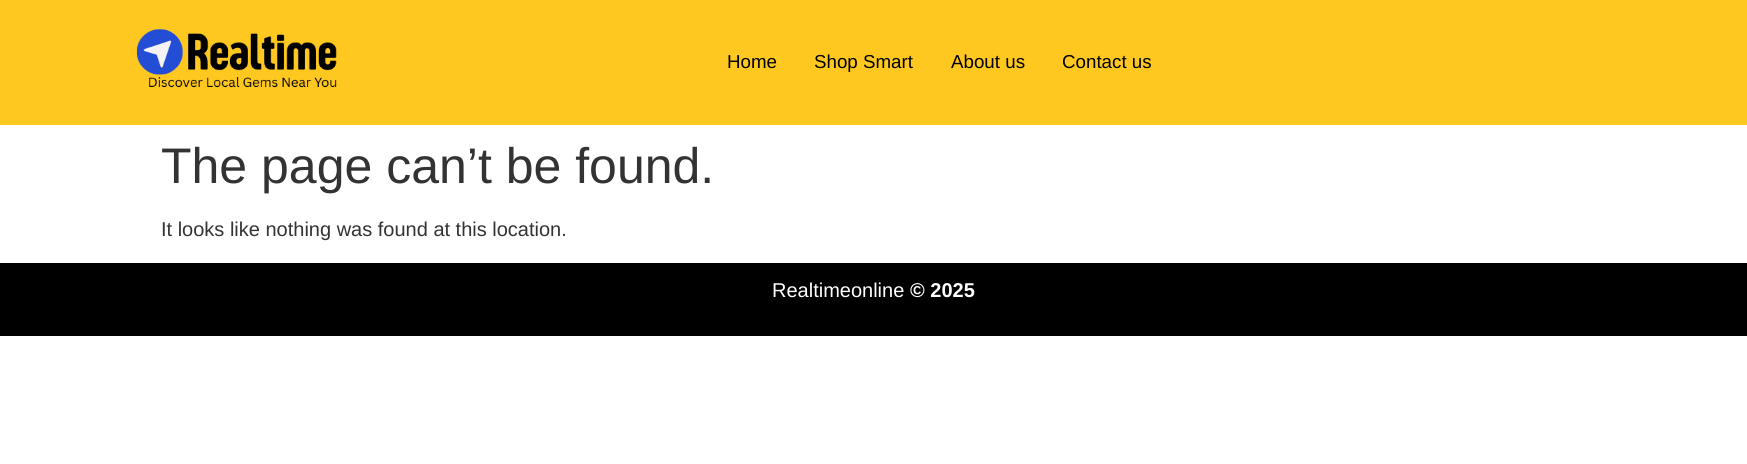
import math
import cairo

surface = cairo.ImageSurface(cairo.FORMAT_RGB24, 1747, 464)
cr = cairo.Context(surface)
options = cairo.FontOptions()
options.set_hint_metrics(cairo.HINT_METRICS_OFF)
options.set_hint_style(cairo.HINT_STYLE_NONE)
cr.set_font_options(options)
cr.set_miter_limit(4)


def rgb(code):
    cr.set_source_rgb(*(v / 255 for v in bytes.fromhex(code[-6:])))


def image(path, x, y, w, h):
    cr.save()
    cr.set_source_surface(cairo.ImageSurface.create_from_png(path), x, y)
    cr.rectangle(x, y, w, h)
    cr.fill()
    cr.restore()


rgb("#ffffff")
cr.paint()
rgb("#ffc820")
cr.rectangle(0, 0, 1747, 125)
cr.fill()
image("img/1.png", 136, 28, 201, 60)
rgb("#000000")
cr.rectangle(0, 263, 1747, 73)
cr.fill()
cr.select_font_face("Liberation Sans")
cr.set_font_size(18.75)
for x, y, s in [
    (727, 68, "Home"),
    (814, 68, "Shop Smart"),
    (951, 68, "About us"),
    (1062, 68, "Contact us"),
]:
    cr.move_to(x, y)
    cr.show_text(s)
cr.set_font_size(50)
rgb("#333333")
cr.move_to(161, 183)
cr.show_text("The page can’t be found.")
cr.set_font_size(20)
cr.move_to(161, 236)
cr.show_text("It looks like nothing was found at this location.")
rgb("#ffffff")
cr.move_to(772, 297)
cr.show_text("Realtimeonline")
cr.select_font_face("Liberation Sans", cairo.FONT_SLANT_NORMAL, cairo.FONT_WEIGHT_BOLD)
cr.move_to(910, 297)
cr.show_text("© 2025")
surface.write_to_png("page.png")
